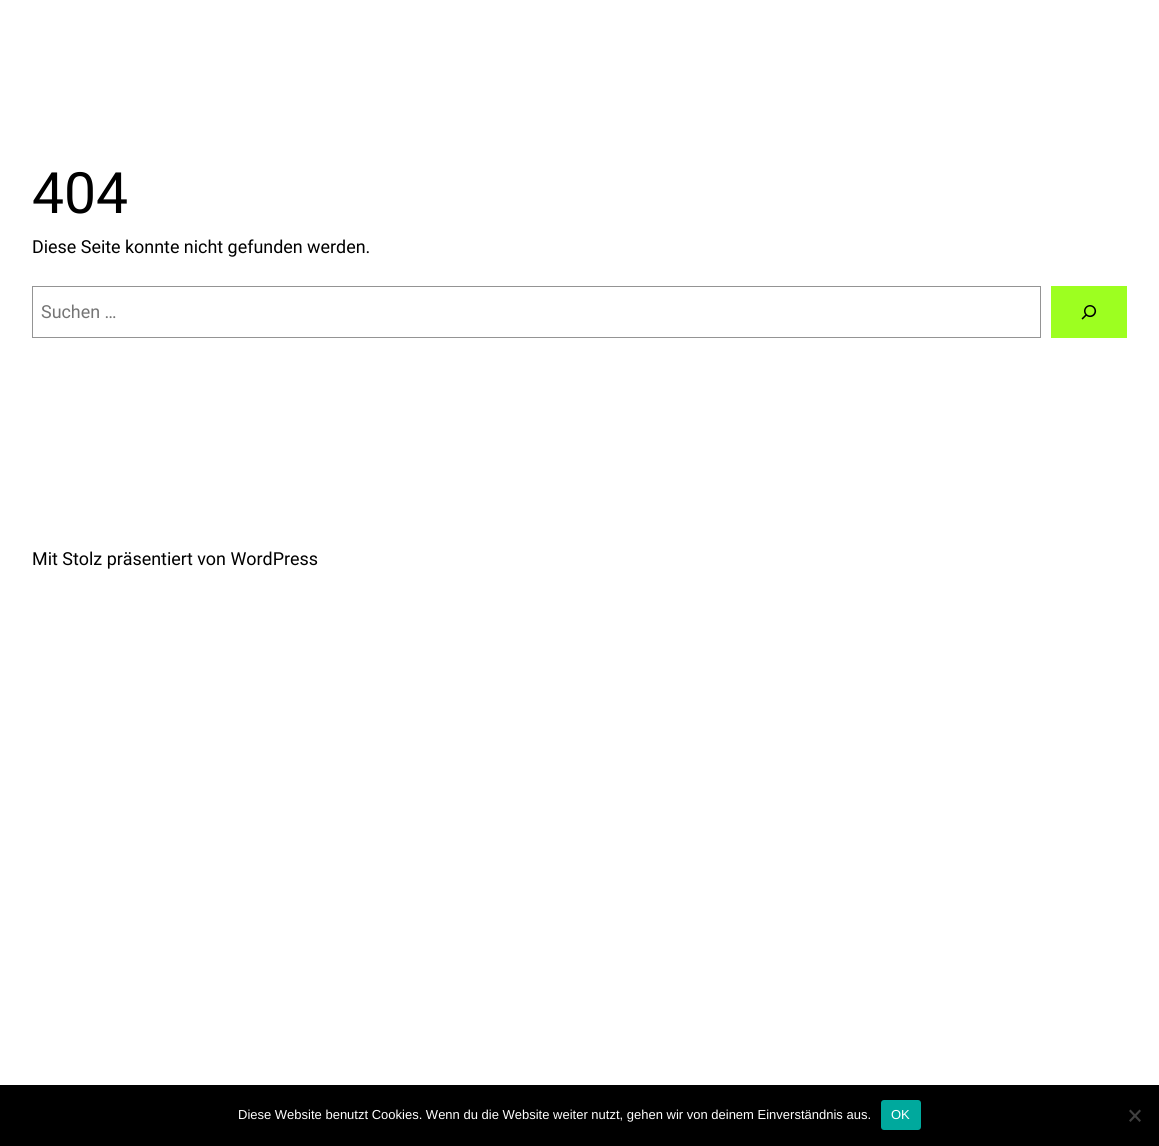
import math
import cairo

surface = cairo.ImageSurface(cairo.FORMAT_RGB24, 1159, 1146)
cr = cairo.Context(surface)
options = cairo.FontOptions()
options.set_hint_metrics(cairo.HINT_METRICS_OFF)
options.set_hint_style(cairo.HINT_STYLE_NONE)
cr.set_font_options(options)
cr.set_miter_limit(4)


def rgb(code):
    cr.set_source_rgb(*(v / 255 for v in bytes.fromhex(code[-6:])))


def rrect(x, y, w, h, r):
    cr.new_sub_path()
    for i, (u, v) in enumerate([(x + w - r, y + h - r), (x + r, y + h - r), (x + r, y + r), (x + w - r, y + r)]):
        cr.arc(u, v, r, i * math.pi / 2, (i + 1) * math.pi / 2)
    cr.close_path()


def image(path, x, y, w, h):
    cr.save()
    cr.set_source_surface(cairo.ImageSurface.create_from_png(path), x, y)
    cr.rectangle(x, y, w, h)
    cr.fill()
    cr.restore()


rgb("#ffffff")
cr.paint()
cr.rectangle(32.5, 286.5, 1008, 51)
rgb("#949494")
cr.set_line_width(1)
cr.stroke()
rgb("#9dff20")
cr.rectangle(1051, 286, 76, 52)
cr.fill()
image("img/1.png", 1081, 305, 16, 15)
rgb("#000000")
cr.rectangle(0, 1085, 1159, 61)
cr.fill()
rgb("#00a99d")
rrect(881, 1100, 40, 30, 3)
cr.fill()
rgb("#404040")
cr.new_path()
cr.move_to(1139.5, 1109.5)
cr.line_to(1141, 1111)
cr.line_to(1130.5, 1122)
cr.line_to(1129, 1120.5)
cr.close_path()
cr.fill()
cr.new_path()
cr.move_to(1129, 1111)
cr.line_to(1130.5, 1109.5)
cr.line_to(1141, 1120.5)
cr.line_to(1139.5, 1122)
cr.close_path()
cr.fill()
cr.select_font_face("Roboto")
cr.set_font_size(57)
rgb("#000000")
cr.move_to(32, 213)
cr.show_text("404")
cr.set_font_size(17.9)
cr.move_to(32, 253)
cr.show_text("Diese Seite konnte nicht gefunden werden.")
rgb("#757575")
cr.move_to(41, 318)
cr.show_text("Suchen …")
rgb("#000000")
cr.move_to(32, 565)
cr.show_text("Mit Stolz präsentiert von WordPress")
cr.select_font_face("Liberation Sans")
cr.set_font_size(13)
rgb("#ffffff")
cr.move_to(238, 1119)
cr.show_text("Diese Website benutzt Cookies. Wenn du die Website weiter nutzt, gehen wir von deinem Einverständnis aus.")
cr.move_to(891, 1119)
cr.show_text("OK")
surface.write_to_png("page.png")
